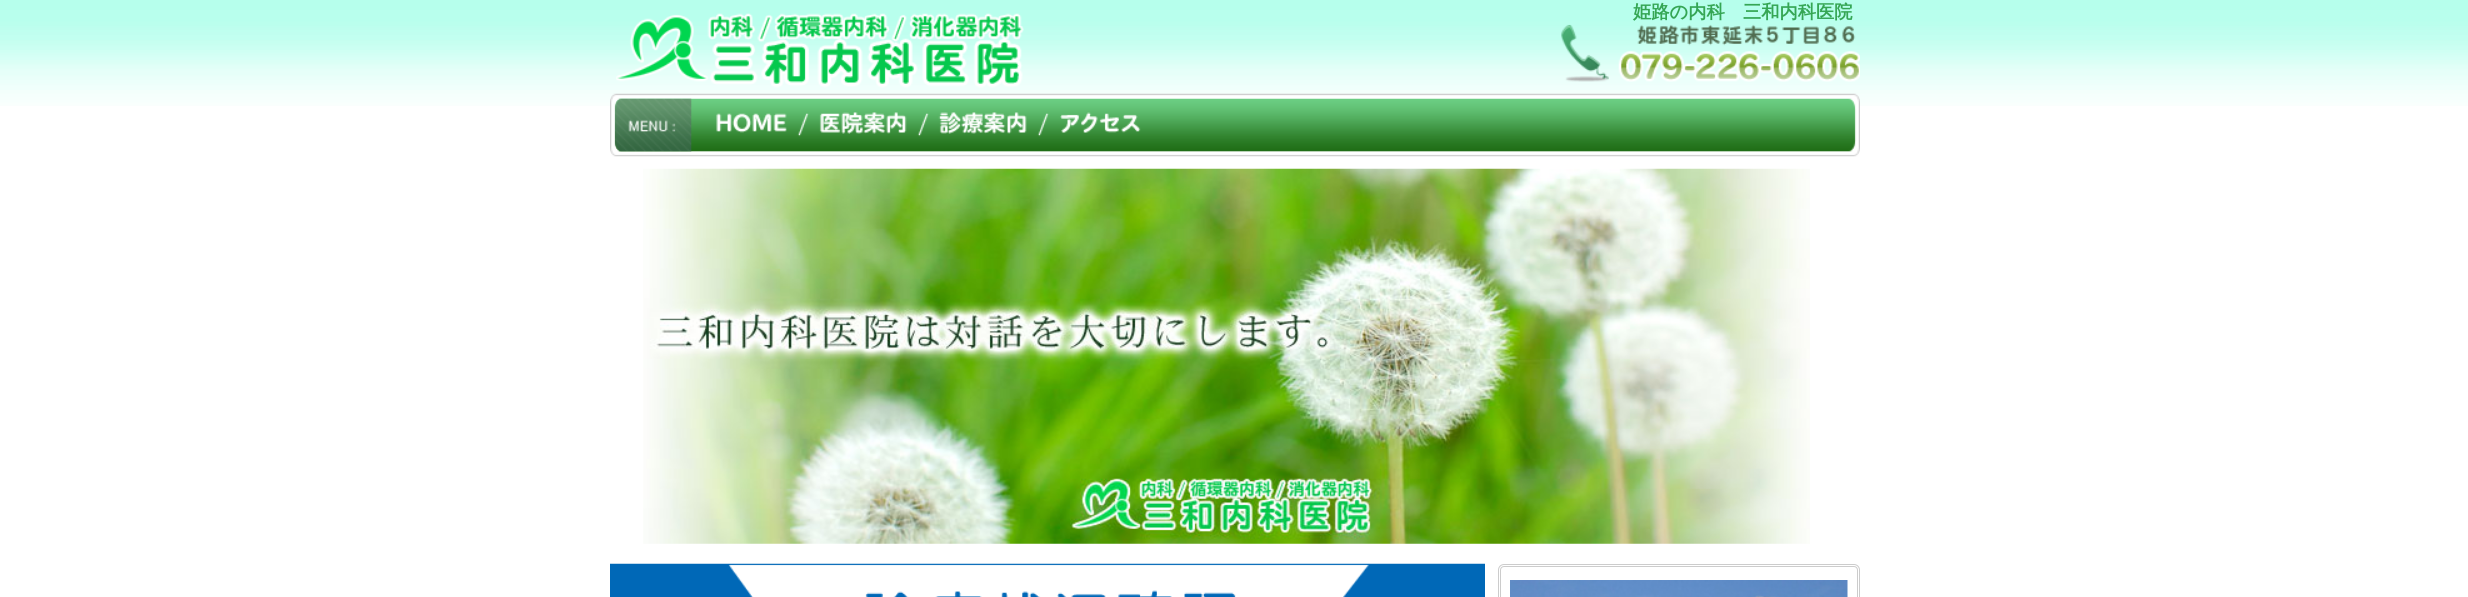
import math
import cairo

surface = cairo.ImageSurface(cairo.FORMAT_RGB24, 2468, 597)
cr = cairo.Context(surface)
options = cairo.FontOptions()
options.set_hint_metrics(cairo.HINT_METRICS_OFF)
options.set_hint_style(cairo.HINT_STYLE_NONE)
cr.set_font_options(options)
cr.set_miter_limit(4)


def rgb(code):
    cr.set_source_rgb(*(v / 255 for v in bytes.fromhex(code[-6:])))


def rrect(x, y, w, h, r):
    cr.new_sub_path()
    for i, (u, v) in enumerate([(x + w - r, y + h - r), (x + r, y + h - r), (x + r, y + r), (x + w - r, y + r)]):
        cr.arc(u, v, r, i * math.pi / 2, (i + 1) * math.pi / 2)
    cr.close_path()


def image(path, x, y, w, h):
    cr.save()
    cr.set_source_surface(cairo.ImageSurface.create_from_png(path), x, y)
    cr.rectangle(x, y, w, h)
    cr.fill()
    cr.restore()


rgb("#ffffff")
cr.paint()
image("img/1.png", 0, 0, 2468, 106)
image("img/2.png", 1561, 24, 299, 58)
image("img/3.png", 616, 13, 408, 75)
image("img/4.png", 610, 93, 1250, 64)
image("img/5.png", 614, 98, 78, 54)
image("img/6.png", 716, 113, 71, 20)
image("img/7.png", 797, 113, 12, 24)
image("img/8.png", 819, 112, 88, 22)
image("img/7.png", 917, 113, 12, 24)
image("img/9.png", 938, 112, 89, 22)
image("img/7.png", 1037, 113, 12, 24)
image("img/10.png", 1060, 112, 81, 21)
image("img/11.png", 643, 168, 1167, 376)
image("img/12.png", 610, 563, 875, 34)
rrect(1498.5, 564.5, 361, 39, 5.5)
rgb("#cccccc")
cr.set_line_width(1)
cr.stroke()
rrect(1500.5, 566.5, 357, 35, 3.5)
cr.stroke()
image("img/13.png", 1510, 580, 338, 17)
cr.select_font_face("WenQuanYi Zen Hei", cairo.FONT_SLANT_NORMAL, cairo.FONT_WEIGHT_BOLD)
cr.set_font_size(18.25)
rgb("#35a654")
cr.move_to(1633, 18)
cr.show_text("姫路の内科　三和内科医院")
surface.write_to_png("page.png")
